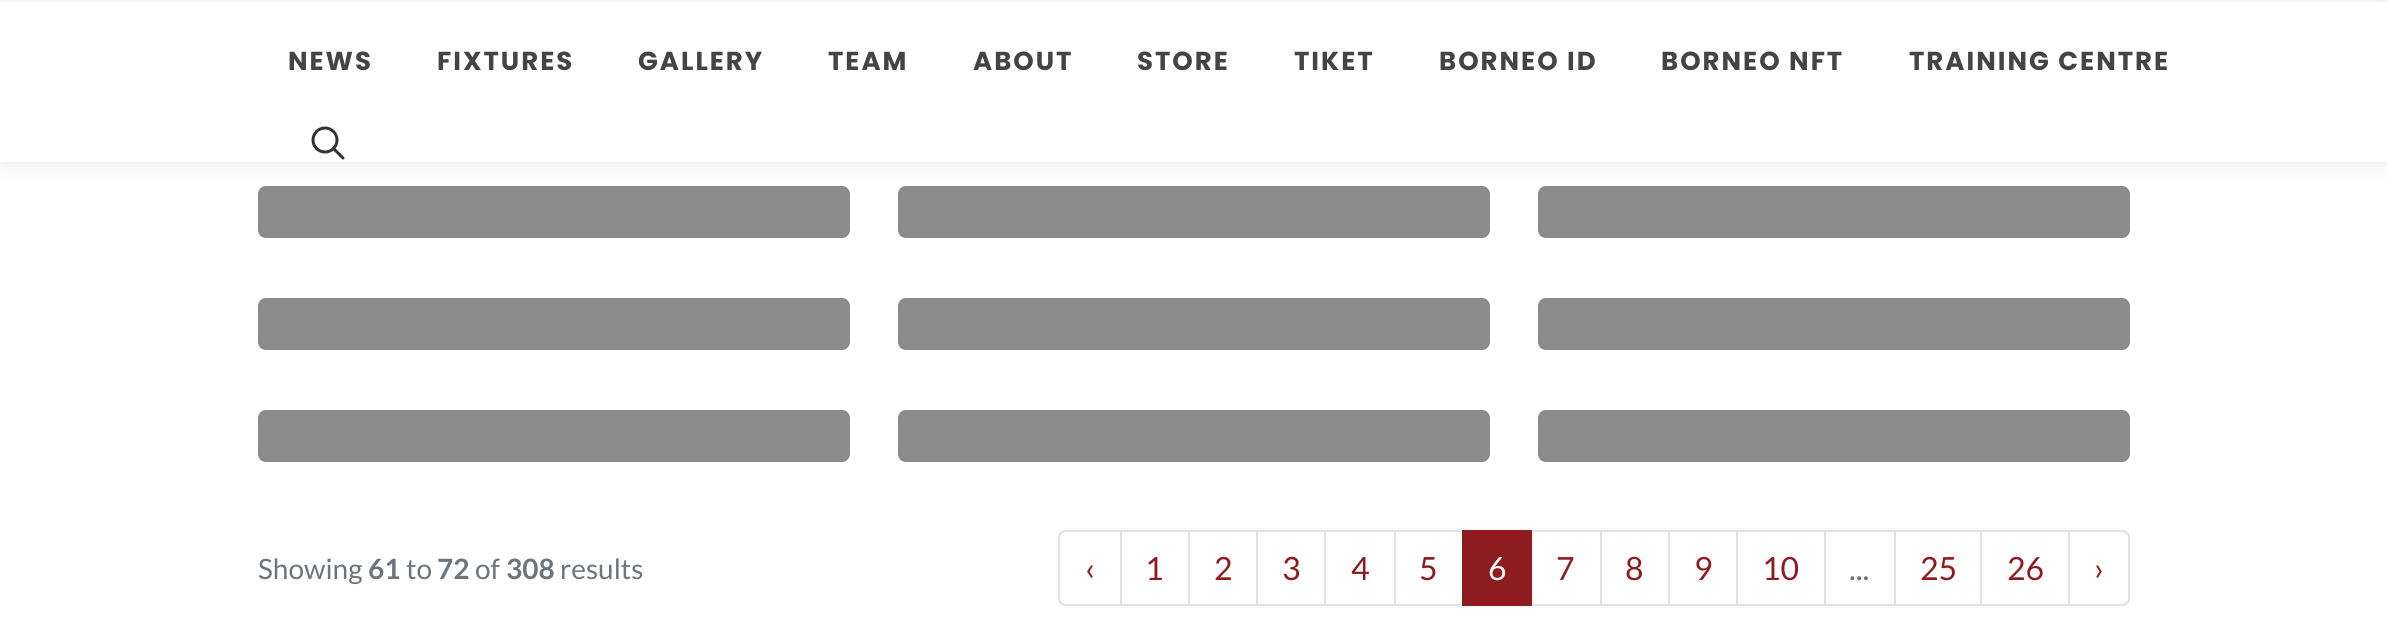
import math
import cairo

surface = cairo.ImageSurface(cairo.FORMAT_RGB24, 2387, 623)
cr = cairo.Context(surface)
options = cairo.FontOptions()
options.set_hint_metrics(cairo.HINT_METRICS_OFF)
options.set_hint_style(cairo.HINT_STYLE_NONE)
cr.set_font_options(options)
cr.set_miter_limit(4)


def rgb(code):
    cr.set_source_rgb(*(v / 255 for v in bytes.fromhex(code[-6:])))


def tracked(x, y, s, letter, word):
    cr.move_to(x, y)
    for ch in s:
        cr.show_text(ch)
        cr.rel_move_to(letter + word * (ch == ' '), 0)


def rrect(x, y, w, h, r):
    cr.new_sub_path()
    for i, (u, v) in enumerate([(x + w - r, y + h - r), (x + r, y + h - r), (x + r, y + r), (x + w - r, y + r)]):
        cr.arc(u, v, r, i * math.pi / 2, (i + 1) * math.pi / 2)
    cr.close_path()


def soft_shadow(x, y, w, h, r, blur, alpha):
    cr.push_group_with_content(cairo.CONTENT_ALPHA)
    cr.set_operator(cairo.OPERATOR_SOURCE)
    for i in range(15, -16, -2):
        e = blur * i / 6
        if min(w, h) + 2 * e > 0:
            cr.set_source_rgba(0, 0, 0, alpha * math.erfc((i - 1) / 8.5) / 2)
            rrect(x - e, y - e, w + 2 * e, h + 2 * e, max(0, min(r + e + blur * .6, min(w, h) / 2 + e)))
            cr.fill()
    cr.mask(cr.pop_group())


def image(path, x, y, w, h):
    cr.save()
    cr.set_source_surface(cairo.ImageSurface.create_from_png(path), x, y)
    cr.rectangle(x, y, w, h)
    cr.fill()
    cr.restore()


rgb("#ffffff")
cr.paint()
gradient = cairo.LinearGradient(554, 238, 554, -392)
gradient.add_color_stop_rgba(0.3, 0.549, 0.549, 0.549, 1)
gradient.add_color_stop_rgba(0.7, 1, 1, 1, 1)
cr.set_source(gradient)
rrect(258, 186, 592, 52, 8)
cr.fill()
gradient = cairo.LinearGradient(1194, 238, 1194, -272)
gradient.add_color_stop_rgba(0.3, 0.549, 0.549, 0.549, 1)
gradient.add_color_stop_rgba(0.7, 1, 1, 1, 1)
cr.set_source(gradient)
rrect(898, 186, 592, 52, 8)
cr.fill()
gradient = cairo.LinearGradient(1834, 238, 1834, -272)
gradient.add_color_stop_rgba(0.3, 0.549, 0.549, 0.549, 1)
gradient.add_color_stop_rgba(0.7, 1, 1, 1, 1)
cr.set_source(gradient)
rrect(1538, 186, 592, 52, 8)
cr.fill()
rgb("#000000")
soft_shadow(0, 0, 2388, 162, 0, 10, 0.1)
rgb("#ffffff")
cr.rectangle(0, 2, 2387, 160)
cr.fill()
rgb("#f5f5f5")
cr.rectangle(0, 0, 2376, 2)
cr.fill()
image("img/1.png", 311, 126, 34, 34)
gradient = cairo.LinearGradient(554, 350, 554, -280)
gradient.add_color_stop_rgba(0.3, 0.549, 0.549, 0.549, 1)
gradient.add_color_stop_rgba(0.7, 1, 1, 1, 1)
cr.set_source(gradient)
rrect(258, 298, 592, 52, 8)
cr.fill()
gradient = cairo.LinearGradient(1194, 350, 1194, -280)
gradient.add_color_stop_rgba(0.3, 0.549, 0.549, 0.549, 1)
gradient.add_color_stop_rgba(0.7, 1, 1, 1, 1)
cr.set_source(gradient)
rrect(898, 298, 592, 52, 8)
cr.fill()
gradient = cairo.LinearGradient(1834, 350, 1834, -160)
gradient.add_color_stop_rgba(0.3, 0.549, 0.549, 0.549, 1)
gradient.add_color_stop_rgba(0.7, 1, 1, 1, 1)
cr.set_source(gradient)
rrect(1538, 298, 592, 52, 8)
cr.fill()
gradient = cairo.LinearGradient(554, 462, 554, -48)
gradient.add_color_stop_rgba(0.3, 0.549, 0.549, 0.549, 1)
gradient.add_color_stop_rgba(0.7, 1, 1, 1, 1)
cr.set_source(gradient)
rrect(258, 410, 592, 52, 8)
cr.fill()
gradient = cairo.LinearGradient(1194, 462, 1194, -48)
gradient.add_color_stop_rgba(0.3, 0.549, 0.549, 0.549, 1)
gradient.add_color_stop_rgba(0.7, 1, 1, 1, 1)
cr.set_source(gradient)
rrect(898, 410, 592, 52, 8)
cr.fill()
gradient = cairo.LinearGradient(1834, 462, 1834, -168)
gradient.add_color_stop_rgba(0.3, 0.549, 0.549, 0.549, 1)
gradient.add_color_stop_rgba(0.7, 1, 1, 1, 1)
cr.set_source(gradient)
rrect(1538, 410, 592, 52, 8)
cr.fill()
cr.new_path()
cr.move_to(1066, 531)
cr.line_to(1121, 531)
cr.line_to(1121, 605)
cr.line_to(1066, 605)
cr.curve_to(1062, 605, 1059, 602, 1059, 598)
cr.line_to(1059, 538)
cr.curve_to(1059, 534, 1062, 531, 1066, 531)
cr.close_path()
rgb("#dee2e6")
cr.stroke()
cr.rectangle(1121, 531, 68, 74)
cr.stroke()
cr.rectangle(1189, 531, 68, 74)
cr.stroke()
cr.rectangle(1257, 531, 68, 74)
cr.stroke()
cr.rectangle(1325, 531, 70, 74)
cr.stroke()
cr.rectangle(1395, 531, 68, 74)
cr.stroke()
cr.rectangle(1531, 531, 70, 74)
cr.stroke()
rgb("#8e1b20")
cr.rectangle(1462, 530, 70, 76)
cr.fill()
cr.rectangle(1601, 531, 68, 74)
rgb("#dee2e6")
cr.stroke()
cr.rectangle(1669, 531, 68, 74)
cr.stroke()
cr.rectangle(1737, 531, 88, 74)
cr.stroke()
cr.rectangle(1825, 531, 70, 74)
cr.stroke()
cr.rectangle(1895, 531, 86, 74)
cr.stroke()
cr.rectangle(1981, 531, 88, 74)
cr.stroke()
rgb("#ffffff")
cr.new_path()
cr.move_to(2069, 531)
cr.line_to(2122, 531)
cr.curve_to(2126, 531, 2129, 534, 2129, 538)
cr.line_to(2129, 598)
cr.curve_to(2129, 602, 2126, 605, 2122, 605)
cr.line_to(2069, 605)
cr.close_path()
cr.fill_preserve()
rgb("#dee2e6")
cr.stroke()
cr.select_font_face("Poppins", cairo.FONT_SLANT_NORMAL, cairo.FONT_WEIGHT_BOLD)
cr.set_font_size(26)
rgb("#444444")
for x, y, s in [
    (288, 70, "NEWS"),
    (437, 70, "FIXTURES"),
    (638, 70, "GALLERY"),
    (828, 70, "TEAM"),
    (973, 70, "ABOUT"),
    (1137, 70, "STORE"),
    (1294, 70, "TIKET"),
    (1439, 70, "BORNEO ID"),
    (1661, 70, "BORNEO NFT"),
    (1909, 70, "TRAINING CENTRE"),
]:
    tracked(x, y, s, 2, 0)
cr.select_font_face("Lato")
cr.set_font_size(28)
rgb("#6c757d")
cr.move_to(258, 579)
cr.show_text("Showing")
cr.select_font_face("Lato", cairo.FONT_SLANT_NORMAL, cairo.FONT_WEIGHT_BOLD)
cr.move_to(368, 579)
cr.show_text("61")
cr.select_font_face("Lato")
cr.move_to(406, 579)
cr.show_text("to")
cr.select_font_face("Lato", cairo.FONT_SLANT_NORMAL, cairo.FONT_WEIGHT_BOLD)
cr.move_to(437, 579)
cr.show_text("72")
cr.select_font_face("Lato")
cr.move_to(475, 579)
cr.show_text("of")
cr.select_font_face("Lato", cairo.FONT_SLANT_NORMAL, cairo.FONT_WEIGHT_BOLD)
cr.move_to(506, 579)
cr.show_text("308")
cr.select_font_face("Lato")
cr.move_to(560, 579)
cr.show_text("results")
cr.set_font_size(32)
rgb("#8e1b20")
for x, y, s in [
    (1085, 580, "‹"),
    (1145, 580, "1"),
    (1214, 580, "2"),
    (1282, 580, "3"),
    (1351, 580, "4"),
    (1419, 580, "5"),
]:
    cr.move_to(x, y)
    cr.show_text(s)
rgb("#ffffff")
cr.move_to(1488, 580)
cr.show_text("6")
rgb("#8e1b20")
for x, y, s in [
    (1556, 580, "7"),
    (1625, 580, "8"),
    (1694, 580, "9"),
    (1762, 580, "10"),
    (1920, 580, "25"),
    (2007, 580, "26"),
    (2094, 580, "›"),
]:
    cr.move_to(x, y)
    cr.show_text(s)
rgb("#6c757d")
cr.move_to(1849, 580)
cr.show_text("...")
surface.write_to_png("page.png")
